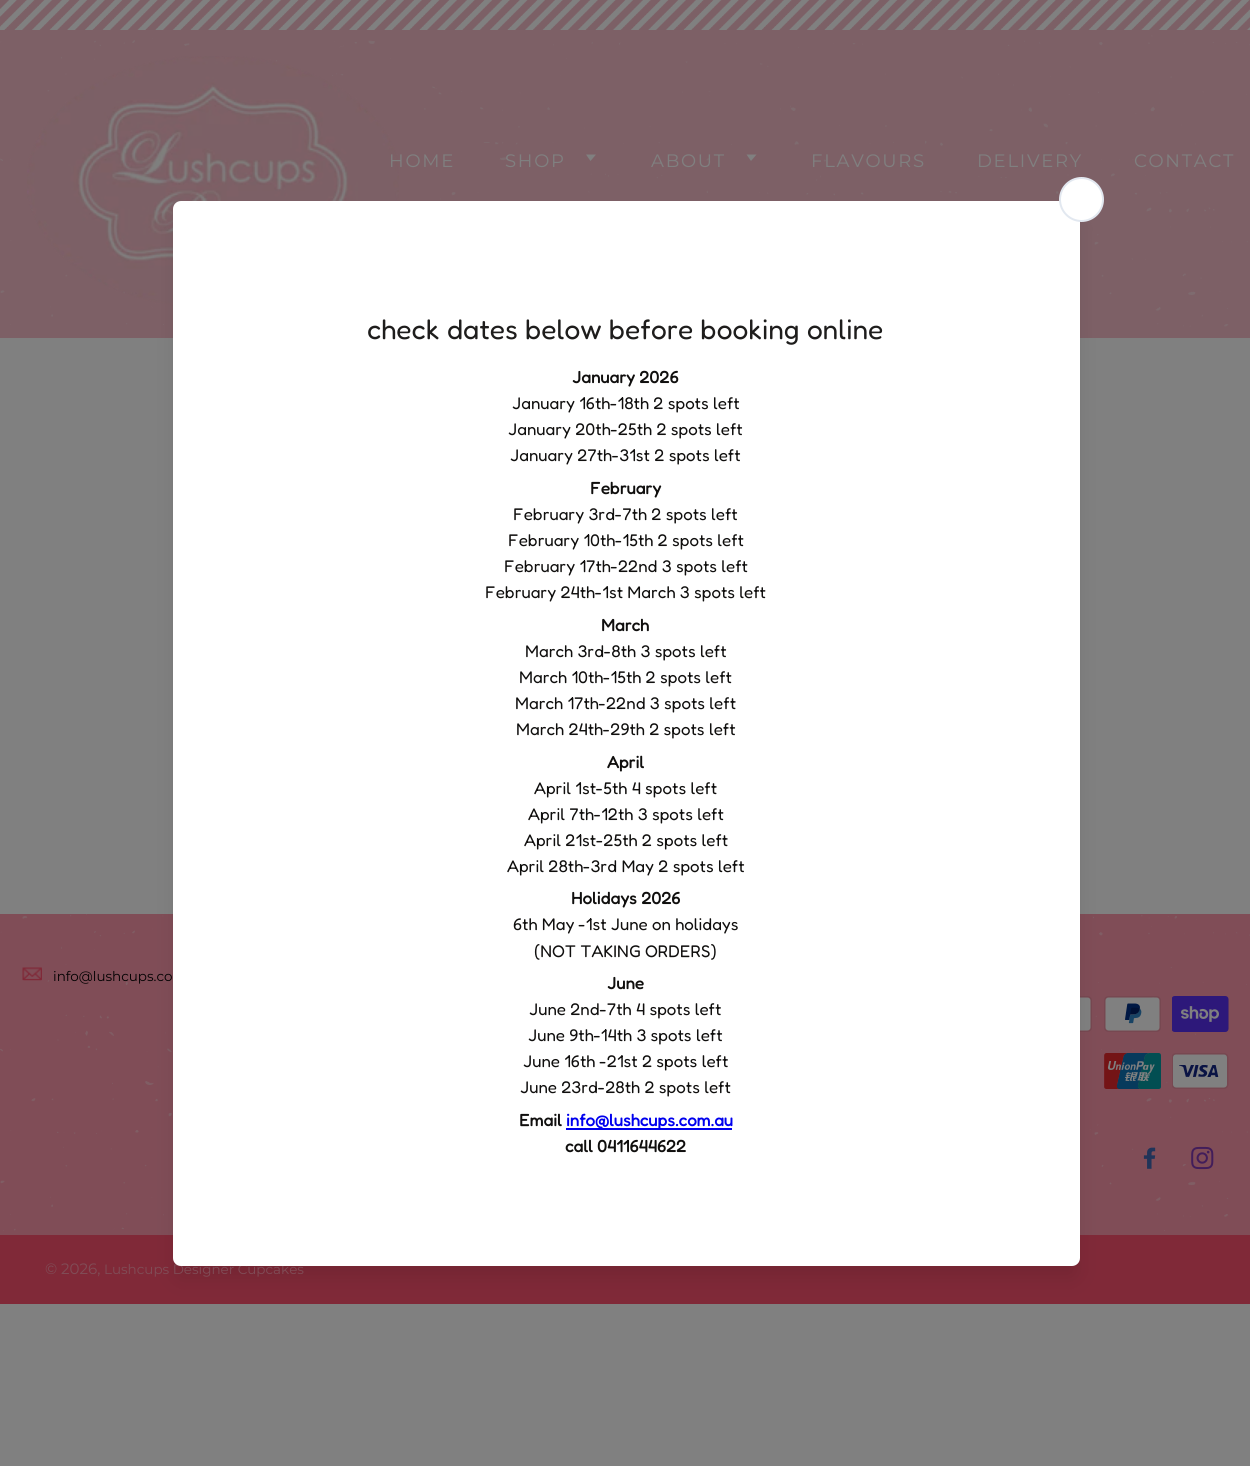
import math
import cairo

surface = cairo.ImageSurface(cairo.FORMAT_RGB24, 1250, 1466)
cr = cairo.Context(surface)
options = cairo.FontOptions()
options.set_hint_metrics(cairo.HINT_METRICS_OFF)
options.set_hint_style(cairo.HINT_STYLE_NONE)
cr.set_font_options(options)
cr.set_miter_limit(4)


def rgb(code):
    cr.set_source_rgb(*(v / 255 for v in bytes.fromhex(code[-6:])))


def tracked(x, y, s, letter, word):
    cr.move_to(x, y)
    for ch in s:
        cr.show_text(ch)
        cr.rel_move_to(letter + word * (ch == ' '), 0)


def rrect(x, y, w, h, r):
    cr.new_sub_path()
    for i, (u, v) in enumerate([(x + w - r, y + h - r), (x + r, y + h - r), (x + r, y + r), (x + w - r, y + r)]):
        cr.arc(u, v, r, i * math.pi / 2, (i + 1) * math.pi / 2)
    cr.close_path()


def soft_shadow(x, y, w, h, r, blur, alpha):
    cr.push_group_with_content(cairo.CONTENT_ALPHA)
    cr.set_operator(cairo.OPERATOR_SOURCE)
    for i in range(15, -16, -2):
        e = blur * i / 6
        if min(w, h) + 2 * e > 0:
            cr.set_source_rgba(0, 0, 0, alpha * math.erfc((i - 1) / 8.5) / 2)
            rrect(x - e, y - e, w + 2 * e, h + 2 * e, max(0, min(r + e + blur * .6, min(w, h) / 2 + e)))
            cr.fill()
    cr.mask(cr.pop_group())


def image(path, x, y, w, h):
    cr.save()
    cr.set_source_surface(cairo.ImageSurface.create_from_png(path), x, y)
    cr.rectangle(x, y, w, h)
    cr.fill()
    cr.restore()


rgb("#808080")
cr.paint()
image("img/1.png", 0, 0, 1250, 30)
rgb("#7d6066")
cr.rectangle(0, 30, 1250, 308)
cr.fill()
image("img/2.png", 0, 35, 1250, 292)
image("img/3.png", 27, 56, 372, 250)
rgb("#808080")
cr.new_path()
cr.move_to(586, 154.5)
cr.line_to(590.5, 161)
cr.line_to(596, 154.5)
cr.close_path()
cr.fill()
cr.new_path()
cr.move_to(746.5, 154.5)
cr.line_to(751, 161)
cr.line_to(756.5, 154.5)
cr.close_path()
cr.fill()
rgb("#804d57")
cr.rectangle(0, 914, 1250, 321)
cr.fill()
image("img/4.png", 0, 914, 1250, 317)
image("img/5.png", 22, 967, 20, 14)
image("img/6.png", 1080, 996, 12, 36)
image("img/7.png", 1104, 996, 57, 36)
image("img/8.png", 1172, 996, 57, 36)
image("img/9.png", 1104, 1053, 57, 36)
image("img/10.png", 1172, 1053, 57, 36)
image("img/11.png", 1143, 1147, 13, 22)
image("img/12.png", 1191, 1146, 23, 24)
rgb("#802938")
cr.rectangle(0, 1235, 1250, 69)
cr.fill()
rgb("#000000")
soft_shadow(177, 221, 899, 1056, 3, 11, 0.1)
cr.save()
cr.rectangle(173, 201, 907, 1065)
cr.clip()
soft_shadow(177, 206, 899, 1056, 3, 15, 0.12)
cr.restore()
cr.select_font_face("Montserrat")
cr.set_font_size(18)
rgb("#808080")
for x, y, s in [
    (389, 167, "HOME"),
    (505, 167, "SHOP"),
    (651, 167, "ABOUT"),
    (811, 167, "FLAVOURS"),
    (977, 167, "DELIVERY"),
    (1134, 167, "CONTACT"),
]:
    tracked(x, y, s, 1.75, 0)
cr.set_font_size(13.5)
rgb("#000000")
cr.move_to(53, 981)
cr.show_text("info@lushcups.co")
cr.set_font_size(15)
rgb("#804d57")
cr.move_to(45, 1274)
cr.show_text("© 2026,")
cr.set_font_size(13.5)
cr.move_to(104, 1274)
cr.show_text("Lushcups Designer Cupcakes")
rgb("#ffffff")
rrect(173, 201, 907, 1065, 8)
cr.fill()
cr.arc(1081.5, 199.5, 21.5, 0, 2 * math.pi)
cr.fill_preserve()
rgb("#e2e8f0")
cr.stroke()
cr.select_font_face("Fredoka Light")
cr.set_font_size(28.1)
rgb("#1e1d1c")
cr.move_to(367, 339)
cr.show_text("check dates below before booking online")
cr.select_font_face("Fredoka", cairo.FONT_SLANT_NORMAL, cairo.FONT_WEIGHT_BOLD)
cr.set_font_size(16.9)
rgb("#100f0e")
cr.move_to(572, 383)
cr.show_text("January 2026")
cr.select_font_face("Fredoka Light")
for x, y, s in [
    (512, 409, "January 16th-18th 2 spots left"),
    (508, 435, "January 20th-25th 2 spots left"),
    (510, 461, "January 27th-31st 2 spots left"),
]:
    cr.move_to(x, y)
    cr.show_text(s)
cr.select_font_face("Fredoka", cairo.FONT_SLANT_NORMAL, cairo.FONT_WEIGHT_BOLD)
cr.move_to(590, 494)
cr.show_text("February")
cr.select_font_face("Fredoka Light")
for x, y, s in [
    (513, 520, "February 3rd-7th 2 spots left"),
    (508, 546, "February 10th-15th 2 spots left"),
    (504, 572, "February 17th-22nd 3 spots left"),
    (485, 598, "February 24th-1st March 3 spots left"),
]:
    cr.move_to(x, y)
    cr.show_text(s)
cr.select_font_face("Fredoka", cairo.FONT_SLANT_NORMAL, cairo.FONT_WEIGHT_BOLD)
cr.move_to(601, 631)
cr.show_text("March")
cr.select_font_face("Fredoka Light")
for x, y, s in [
    (525, 657, "March 3rd-8th 3 spots left"),
    (519, 683, "March 10th-15th 2 spots left"),
    (515, 709, "March 17th-22nd 3 spots left"),
    (516, 735, "March 24th-29th 2 spots left"),
]:
    cr.move_to(x, y)
    cr.show_text(s)
cr.select_font_face("Fredoka", cairo.FONT_SLANT_NORMAL, cairo.FONT_WEIGHT_BOLD)
cr.move_to(607, 768)
cr.show_text("April")
cr.select_font_face("Fredoka Light")
for x, y, s in [
    (534, 794, "April 1st-5th 4 spots left"),
    (528, 820, "April 7th-12th 3 spots left"),
    (524, 846, "April 21st-25th 2 spots left"),
    (507, 872, "April 28th-3rd May 2 spots left"),
]:
    cr.move_to(x, y)
    cr.show_text(s)
cr.select_font_face("Fredoka", cairo.FONT_SLANT_NORMAL, cairo.FONT_WEIGHT_BOLD)
cr.move_to(571, 904)
cr.show_text("Holidays 2026")
cr.select_font_face("Fredoka Light")
cr.move_to(513, 930)
cr.show_text("6th May -1st June on holidays")
cr.move_to(534, 957)
cr.show_text("(NOT TAKING ORDERS)")
cr.select_font_face("Fredoka", cairo.FONT_SLANT_NORMAL, cairo.FONT_WEIGHT_BOLD)
cr.move_to(607, 989)
cr.show_text("June")
cr.select_font_face("Fredoka Light")
for x, y, s in [
    (529, 1015, "June 2nd-7th 4 spots left"),
    (528, 1041, "June 9th-14th 3 spots left"),
    (523, 1067, "June 16th -21st 2 spots left"),
    (520, 1093, "June 23rd-28th 2 spots left"),
]:
    cr.move_to(x, y)
    cr.show_text(s)
cr.select_font_face("Fredoka", cairo.FONT_SLANT_NORMAL, cairo.FONT_WEIGHT_BOLD)
cr.move_to(519, 1126)
cr.show_text("Email")
rgb("#0000ee")
cr.rectangle(566, 1128, 166, 2)
cr.fill()
cr.move_to(566, 1126)
cr.show_text("info@lushcups.com.au")
rgb("#100f0e")
cr.move_to(565, 1152)
cr.show_text("call 0411644622")
surface.write_to_png("page.png")
